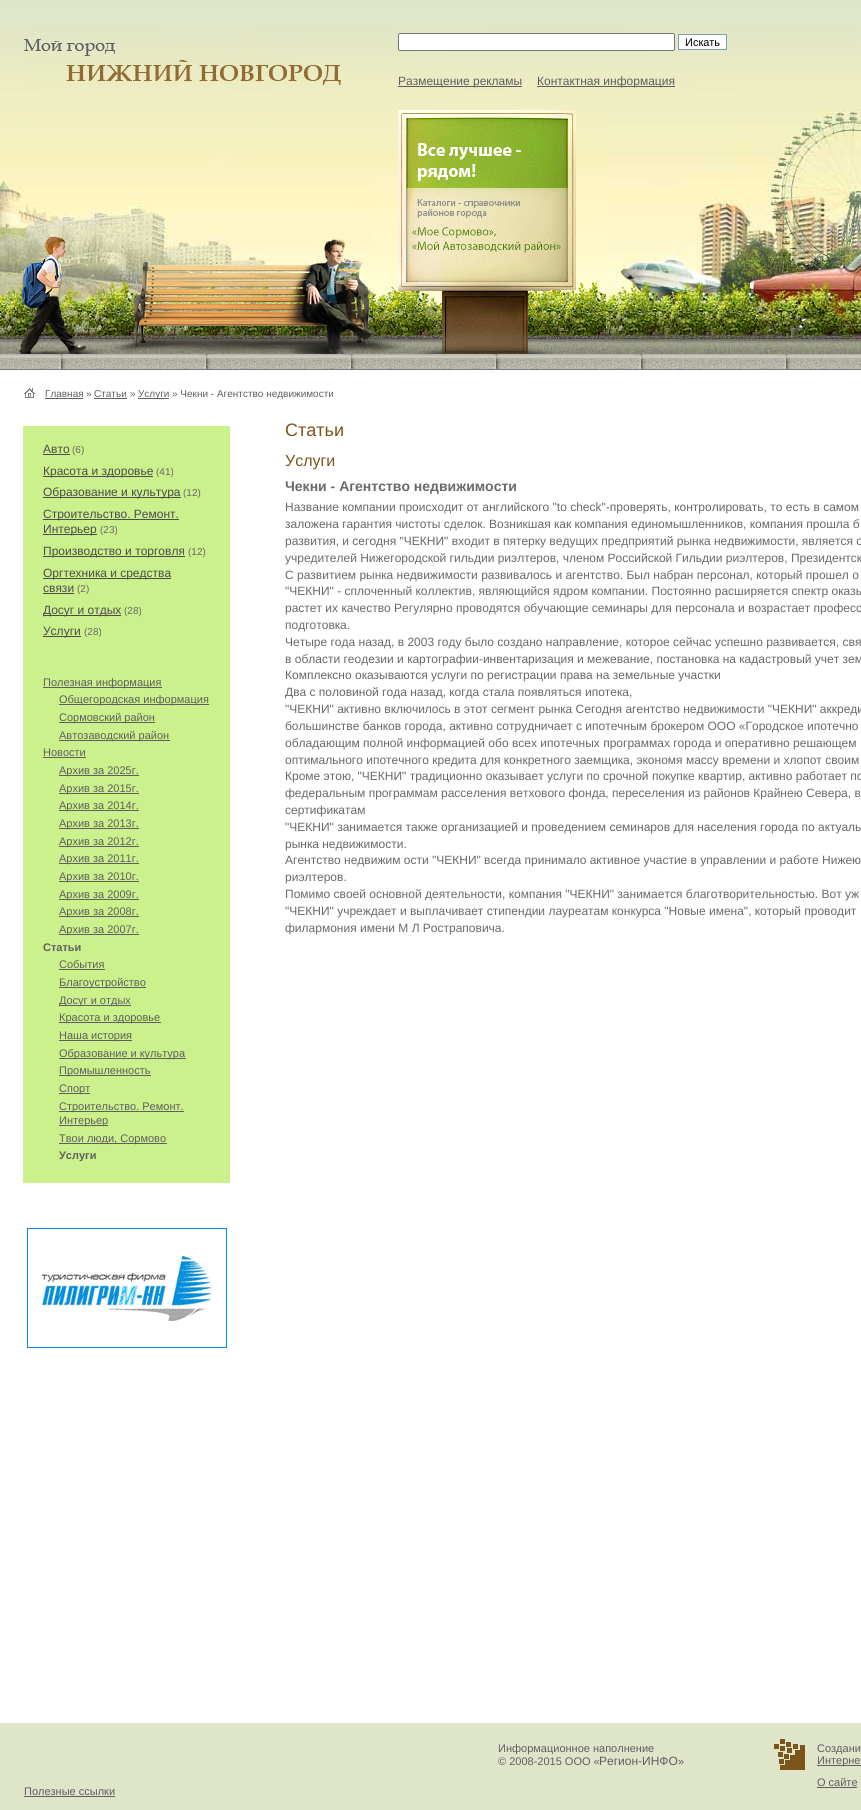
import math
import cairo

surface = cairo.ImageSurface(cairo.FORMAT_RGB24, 861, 1810)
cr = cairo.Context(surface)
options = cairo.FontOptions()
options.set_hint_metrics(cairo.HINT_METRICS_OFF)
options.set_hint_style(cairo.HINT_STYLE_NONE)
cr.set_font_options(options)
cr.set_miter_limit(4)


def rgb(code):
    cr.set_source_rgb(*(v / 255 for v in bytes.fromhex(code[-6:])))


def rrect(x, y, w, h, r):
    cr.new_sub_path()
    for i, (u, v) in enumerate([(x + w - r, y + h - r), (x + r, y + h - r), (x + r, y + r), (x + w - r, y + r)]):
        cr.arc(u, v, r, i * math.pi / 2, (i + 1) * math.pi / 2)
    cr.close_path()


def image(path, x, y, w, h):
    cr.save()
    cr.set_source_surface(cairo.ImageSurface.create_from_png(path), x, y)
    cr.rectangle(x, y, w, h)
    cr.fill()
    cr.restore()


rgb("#ffffff")
cr.paint()
image("img/1.png", 0, 0, 861, 354)
image("img/2.png", 24, 39, 317, 46)
rgb("#ffffff")
rrect(398.5, 33.5, 276, 17, 1.5)
cr.fill_preserve()
rgb("#767676")
cr.set_line_width(1)
cr.stroke()
rgb("#ffffff")
cr.rectangle(678.5, 34.5, 48, 15)
cr.fill_preserve()
rgb("#7e9db9")
cr.stroke()
rgb("#5f5f5f")
cr.rectangle(398, 86, 124, 1)
cr.fill()
cr.rectangle(537, 86, 138, 1)
cr.fill()
image("img/3.png", 0, 180, 373, 174)
image("img/7.png", 398, 110, 178, 238)
image("img/8.png", 402, 348, 172, 6)
image("img/5.png", 101, 239, 314, 115)
image("img/4.png", 0, 236, 108, 118)
image("img/6.png", 606, 109, 255, 245)
image("img/9.png", 0, 354, 861, 16)
image("img/10.png", 24, 388, 11, 10)
for x, y, w, h, color in [
    (45, 398, 38, 1, "#5f5f5f"),
    (94, 398, 33, 1, "#5f5f5f"),
    (138, 398, 31, 1, "#5f5f5f"),
    (23, 426, 207, 757, "#caf18b"),
    (43, 454, 27, 1, "#4c4c4c"),
    (43, 476, 110, 1, "#4c4c4c"),
    (43, 497, 138, 1, "#4c4c4c"),
    (43, 519, 136, 1, "#4c4c4c"),
    (43, 534, 54, 1, "#4c4c4c"),
    (43, 556, 142, 1, "#4c4c4c"),
    (43, 578, 128, 1, "#4c4c4c"),
    (43, 593, 31, 1, "#4c4c4c"),
    (43, 615, 78, 1, "#4c4c4c"),
    (43, 636, 38, 1, "#4c4c4c"),
    (43, 687, 119, 1, "#5f5f5f"),
    (59, 704, 150, 1, "#5f5f5f"),
    (59, 722, 96, 1, "#5f5f5f"),
    (59, 740, 111, 1, "#5f5f5f"),
    (43, 757, 43, 1, "#5f5f5f"),
    (59, 775, 80, 1, "#5f5f5f"),
    (59, 793, 80, 1, "#5f5f5f"),
    (59, 810, 80, 1, "#5f5f5f"),
    (59, 828, 80, 1, "#5f5f5f"),
    (59, 846, 80, 1, "#5f5f5f"),
    (59, 863, 80, 1, "#5f5f5f"),
    (59, 881, 80, 1, "#5f5f5f"),
    (59, 899, 80, 1, "#5f5f5f"),
    (59, 916, 80, 1, "#5f5f5f"),
    (59, 934, 80, 1, "#5f5f5f"),
    (59, 969, 46, 1, "#5f5f5f"),
    (59, 987, 87, 1, "#5f5f5f"),
    (59, 1005, 72, 1, "#5f5f5f"),
    (59, 1022, 102, 1, "#5f5f5f"),
    (59, 1040, 73, 1, "#5f5f5f"),
    (59, 1058, 127, 1, "#5f5f5f"),
    (59, 1075, 92, 1, "#5f5f5f"),
    (59, 1093, 31, 1, "#5f5f5f"),
    (59, 1111, 125, 1, "#5f5f5f"),
    (59, 1125, 49, 1, "#5f5f5f"),
    (59, 1143, 108, 1, "#5f5f5f"),
]:
    rgb(color)
    cr.rectangle(x, y, w, h)
    cr.fill()
image("img/11.png", 27, 1228, 200, 120)
rgb("#dfe5c9")
cr.rectangle(0, 1723, 861, 87)
cr.fill()
image("img/12.png", 774, 1739, 31, 31)
for x, y, w, h, color in [
    (817, 1765, 44, 1, "#5f5f5f"),
    (817, 1787, 40, 1, "#5f5f5f"),
    (24, 1796, 91, 1, "#5f5f5f"),
]:
    rgb(color)
    cr.rectangle(x, y, w, h)
    cr.fill()
cr.select_font_face("Liberation Sans")
cr.set_font_size(11)
rgb("#000000")
cr.move_to(685, 46)
cr.show_text("Искать")
cr.set_font_size(12)
rgb("#5f5f5f")
cr.move_to(398, 85)
cr.show_text("Размещение рекламы")
cr.move_to(537, 85)
cr.show_text("Контактная информация")
cr.set_font_size(10)
for x, y, s in [
    (45, 397, "Главная"),
    (86, 397, "»"),
    (94, 397, "Статьи"),
    (130, 397, "»"),
    (138, 397, "Услуги"),
    (172, 397, "» Чекни - Агентство недвижимости"),
]:
    cr.move_to(x, y)
    cr.show_text(s)
cr.set_font_size(12)
rgb("#4c4c4c")
cr.move_to(43, 453)
cr.show_text("Авто")
cr.set_font_size(10)
rgb("#696969")
cr.move_to(72, 453)
cr.show_text("(6)")
cr.set_font_size(12)
rgb("#4c4c4c")
cr.move_to(43, 475)
cr.show_text("Красота и здоровье")
cr.set_font_size(10)
rgb("#696969")
cr.move_to(156, 475)
cr.show_text("(41)")
cr.set_font_size(12)
rgb("#4c4c4c")
cr.move_to(43, 496)
cr.show_text("Образование и культура")
cr.set_font_size(10)
rgb("#696969")
cr.move_to(183, 496)
cr.show_text("(12)")
cr.set_font_size(12)
rgb("#4c4c4c")
cr.move_to(43, 518)
cr.show_text("Строительство. Ремонт.")
cr.move_to(43, 533)
cr.show_text("Интерьер")
cr.set_font_size(10)
rgb("#696969")
cr.move_to(100, 533)
cr.show_text("(23)")
cr.set_font_size(12)
rgb("#4c4c4c")
cr.move_to(43, 555)
cr.show_text("Производство и торговля")
cr.set_font_size(10)
rgb("#696969")
cr.move_to(188, 555)
cr.show_text("(12)")
cr.set_font_size(12)
rgb("#4c4c4c")
cr.move_to(43, 577)
cr.show_text("Оргтехника и средства")
cr.move_to(43, 592)
cr.show_text("связи")
cr.set_font_size(10)
rgb("#696969")
cr.move_to(77, 592)
cr.show_text("(2)")
cr.set_font_size(12)
rgb("#4c4c4c")
cr.move_to(43, 614)
cr.show_text("Досуг и отдых")
cr.set_font_size(10)
rgb("#696969")
cr.move_to(124, 614)
cr.show_text("(28)")
cr.set_font_size(12)
rgb("#4c4c4c")
cr.move_to(43, 635)
cr.show_text("Услуги")
cr.set_font_size(10)
rgb("#696969")
cr.move_to(84, 635)
cr.show_text("(28)")
cr.set_font_size(11)
rgb("#5f5f5f")
for x, y, s in [
    (43, 686, "Полезная информация"),
    (59, 703, "Общегородская информация"),
    (59, 721, "Сормовский район"),
    (59, 739, "Автозаводский район"),
    (43, 756, "Новости"),
    (59, 774, "Архив за 2025г."),
    (59, 792, "Архив за 2015г."),
    (59, 809, "Архив за 2014г."),
    (59, 827, "Архив за 2013г."),
    (59, 845, "Архив за 2012г."),
    (59, 862, "Архив за 2011г."),
    (59, 880, "Архив за 2010г."),
    (59, 898, "Архив за 2009г."),
    (59, 915, "Архив за 2008г."),
    (59, 933, "Архив за 2007г."),
]:
    cr.move_to(x, y)
    cr.show_text(s)
cr.select_font_face("Liberation Sans", cairo.FONT_SLANT_NORMAL, cairo.FONT_WEIGHT_BOLD)
cr.move_to(43, 951)
cr.show_text("Статьи")
cr.select_font_face("Liberation Sans")
for x, y, s in [
    (59, 968, "События"),
    (59, 986, "Благоустройство"),
    (59, 1004, "Досуг и отдых"),
    (59, 1021, "Красота и здоровье"),
    (59, 1039, "Наша история"),
    (59, 1057, "Образование и культура"),
    (59, 1074, "Промышленность"),
    (59, 1092, "Спорт"),
    (59, 1110, "Строительство. Ремонт."),
    (59, 1124, "Интерьер"),
    (59, 1142, "Твои люди, Сормово"),
]:
    cr.move_to(x, y)
    cr.show_text(s)
cr.select_font_face("Liberation Sans", cairo.FONT_SLANT_NORMAL, cairo.FONT_WEIGHT_BOLD)
cr.move_to(59, 1159)
cr.show_text("Услуги")
cr.select_font_face("Liberation Sans")
cr.set_font_size(18)
rgb("#7a541a")
cr.move_to(285, 436)
cr.show_text("Статьи")
cr.set_font_size(16)
cr.move_to(285, 466)
cr.show_text("Услуги")
cr.select_font_face("Liberation Sans", cairo.FONT_SLANT_NORMAL, cairo.FONT_WEIGHT_BOLD)
cr.set_font_size(14)
rgb("#696969")
cr.move_to(285, 491)
cr.show_text("Чекни - Агентство недвижимости")
cr.select_font_face("Liberation Sans")
cr.set_font_size(12)
for x, y, s in [
    (285, 511, "Название компании происходит от английского \"to check\"-проверять, контролировать, то есть в самом"),
    (285, 528, "заложена гарантия чистоты сделок. Возникшая как компания единомышленников, компания прошла б"),
    (285, 545, "развития, и сегодня \"ЧЕКНИ\" входит в пятерку ведущих предприятий рынка недвижимости, является о"),
    (285, 562, "учредителей Нижегородской гильдии риэлтеров, членом Российской Гильдии риэлтеров, Президентск"),
    (285, 579, "С развитием рынка недвижимости развивалось и агентство. Был набран персонал, который прошел о"),
    (285, 595, "\"ЧЕКНИ\" - сплоченный коллектив, являющийся ядром компании. Постоянно расширяется спектр оказы"),
    (285, 612, "растет их качество Регулярно проводятся обучающие семинары для персонала и возрастает професс"),
    (285, 629, "подготовка."),
    (285, 646, "Четыре года назад, в 2003 году было создано направление, которое сейчас успешно развивается, свя"),
    (285, 663, "в области геодезии и картографии-инвентаризация и межевание, постановка на кадастровый учет зем"),
    (285, 679, "Комплексно оказываются услуги по регистрации права на земельные участки"),
    (285, 696, "Два с половиной года назад, когда стала появляться ипотека,"),
    (285, 713, "\"ЧЕКНИ\" активно включилось в этот сегмент рынка Сегодня агентство недвижимости \"ЧЕКНИ\" аккреди"),
    (285, 730, "большинстве банков города, активно сотрудничает с ипотечным брокером ООО «Городское ипотечно"),
    (285, 747, "обладающим полной информацией обо всех ипотечных программах города и оперативно решающем"),
    (285, 764, "оптимального ипотечного кредита для конкретного заемщика, экономя массу времени и хлопот своим"),
    (285, 780, "Кроме этою, \"ЧЕКНИ\" традиционно оказывает услуги по срочной покупке квартир, активно работает по"),
    (285, 797, "федеральным программам расселения ветхового фонда, переселения из районов Крайнею Севера, в"),
    (285, 814, "сертификатам"),
    (285, 831, "\"ЧЕКНИ\" занимается также организацией и проведением семинаров для населения города по актуаль"),
    (285, 848, "рынка недвижимости."),
    (285, 864, "Агентство недвижим ости \"ЧЕКНИ\" всегда принимало активное участие в управлении и работе Нижею"),
    (285, 881, "риэлтеров."),
    (285, 898, "Помимо своей основной деятельности, компания \"ЧЕКНИ\" занимается благотворительностью. Вот уж"),
    (285, 915, "\"ЧЕКНИ\" учреждает и выплачивает стипендии лауреатам конкурса \"Новые имена\", который проводит"),
    (285, 932, "филармония имени М Л Ростраповича."),
]:
    cr.move_to(x, y)
    cr.show_text(s)
cr.set_font_size(11)
rgb("#5f5f5f")
cr.move_to(498, 1752)
cr.show_text("Информационное наполнение")
cr.move_to(498, 1765)
cr.show_text("© 2008-2015 ООО «")
cr.set_font_size(12)
cr.move_to(599, 1765)
cr.show_text("Регион-ИНФО")
cr.set_font_size(11)
for x, y, s in [
    (678, 1765, "»"),
    (817, 1752, "Создани"),
    (817, 1764, "Интерне"),
    (817, 1786, "О сайте"),
    (24, 1795, "Полезные ссылки"),
]:
    cr.move_to(x, y)
    cr.show_text(s)
surface.write_to_png("page.png")
